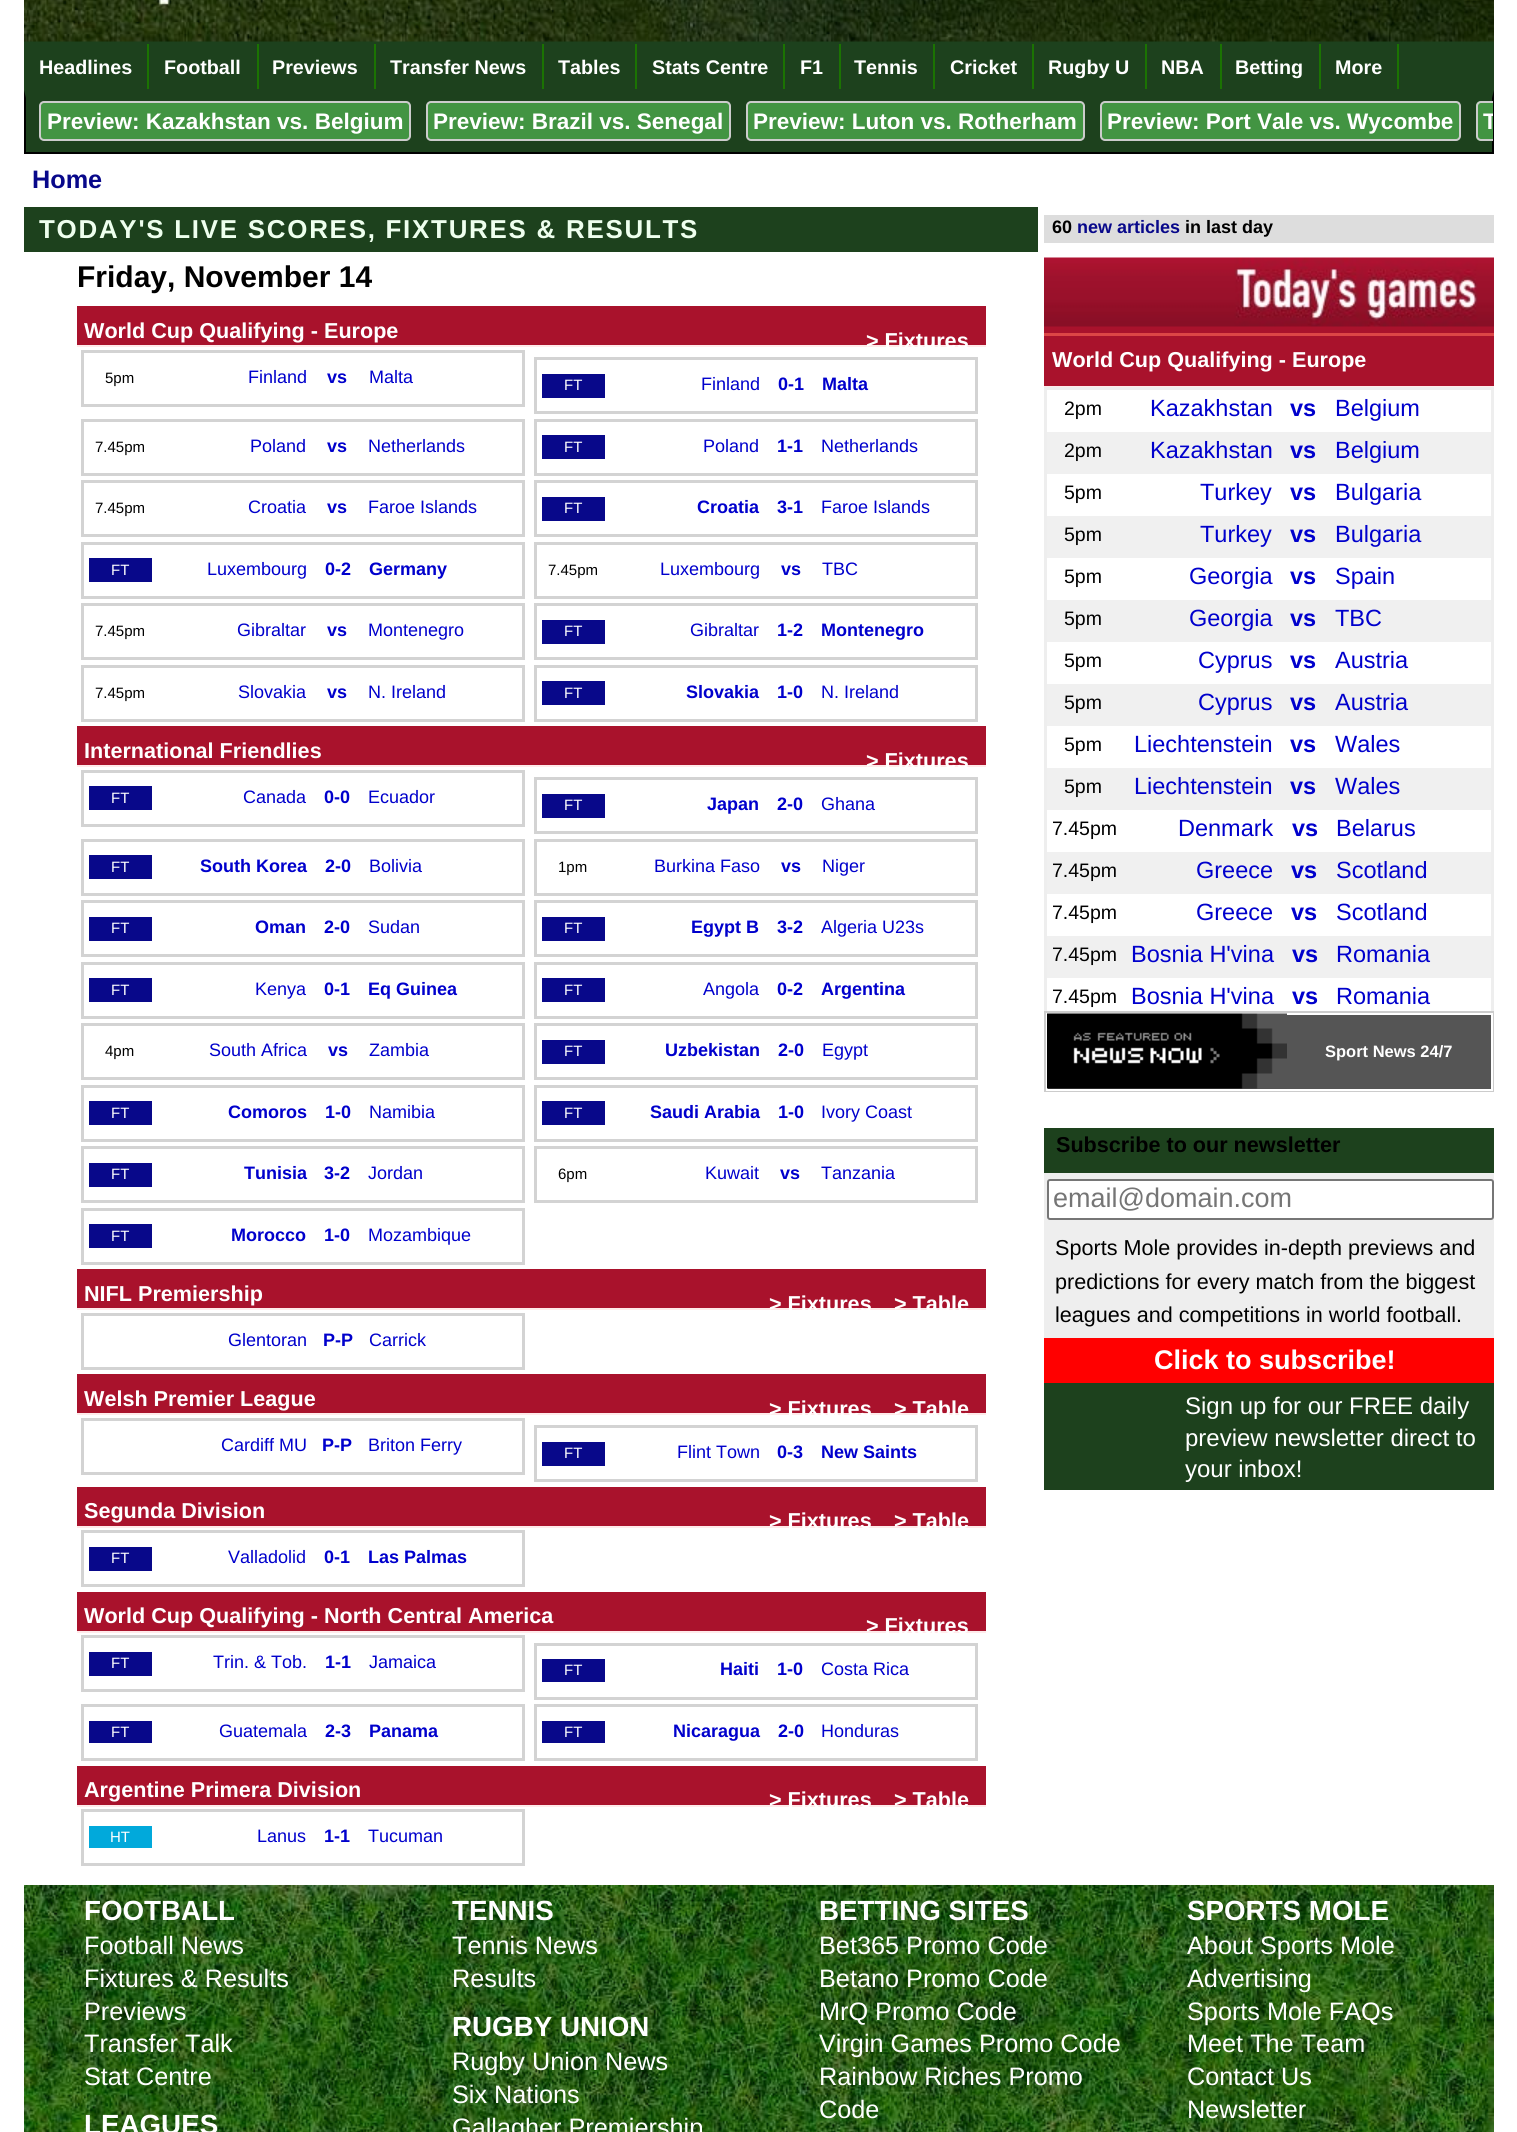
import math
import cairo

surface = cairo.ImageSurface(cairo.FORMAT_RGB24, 1517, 2132)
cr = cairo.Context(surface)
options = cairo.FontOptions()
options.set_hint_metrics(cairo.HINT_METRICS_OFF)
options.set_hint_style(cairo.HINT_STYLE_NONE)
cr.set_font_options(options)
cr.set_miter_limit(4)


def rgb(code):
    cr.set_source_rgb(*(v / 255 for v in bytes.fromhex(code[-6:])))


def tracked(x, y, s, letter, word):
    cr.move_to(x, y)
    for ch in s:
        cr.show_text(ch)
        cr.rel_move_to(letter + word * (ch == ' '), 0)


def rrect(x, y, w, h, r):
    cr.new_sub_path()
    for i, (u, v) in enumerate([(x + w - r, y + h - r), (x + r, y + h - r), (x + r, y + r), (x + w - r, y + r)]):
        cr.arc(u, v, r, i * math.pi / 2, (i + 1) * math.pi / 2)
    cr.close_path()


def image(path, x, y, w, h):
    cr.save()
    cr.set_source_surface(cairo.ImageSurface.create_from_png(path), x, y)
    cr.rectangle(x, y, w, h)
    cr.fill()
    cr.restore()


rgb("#ffffff")
cr.paint()
rgb("#1d411d")
cr.rectangle(24, 41, 1470, 111)
cr.fill()
image("img/1.png", 24, 0, 1470, 42)
for x, y, w, h, color in [
    (147, 44, 2, 45, "#1b7302"),
    (257, 44, 2, 45, "#1b7302"),
    (374, 44, 2, 45, "#1b7302"),
    (542, 44, 2, 45, "#1b7302"),
    (635, 44, 2, 45, "#1b7302"),
    (783, 44, 2, 45, "#1b7302"),
    (839, 44, 2, 45, "#1b7302"),
    (933, 44, 2, 45, "#1b7302"),
    (1032, 44, 2, 45, "#1b7302"),
    (1145, 44, 2, 45, "#1b7302"),
    (1220, 44, 2, 45, "#1b7302"),
    (1319, 44, 2, 45, "#1b7302"),
    (1397, 44, 2, 45, "#1b7302"),
]:
    rgb(color)
    cr.rectangle(x, y, w, h)
    cr.fill()
rgb("#000000")
cr.new_path()
cr.move_to(1494, 90)
cr.line_to(1494, 153)
cr.line_to(1492, 152)
cr.line_to(1492, 98)
cr.close_path()
cr.fill()
cr.rectangle(24, 152, 1470, 2)
cr.fill()
cr.new_path()
cr.move_to(24, 153)
cr.line_to(24, 90)
cr.line_to(26, 98)
cr.line_to(26, 152)
cr.close_path()
cr.fill()
rgb("#429442")
rrect(40, 102, 370, 38, 4)
cr.fill_preserve()
rgb("#cccccc")
cr.stroke()
rgb("#429442")
rrect(427, 102, 303, 38, 4)
cr.fill_preserve()
rgb("#cccccc")
cr.stroke()
rgb("#429442")
rrect(747, 102, 337, 38, 4)
cr.fill_preserve()
rgb("#cccccc")
cr.stroke()
rgb("#429442")
rrect(1101, 102, 359, 38, 4)
cr.fill_preserve()
rgb("#cccccc")
cr.stroke()
rgb("#429442")
cr.new_path()
cr.move_to(1481, 101)
cr.line_to(1493, 101)
cr.line_to(1493, 141)
cr.line_to(1481, 141)
cr.curve_to(1478, 141, 1476, 139, 1476, 136)
cr.line_to(1476, 106)
cr.curve_to(1476, 103, 1478, 101, 1481, 101)
cr.close_path()
cr.fill()
cr.save()
cr.rectangle(26, 98, 1467, 54)
cr.clip()
rrect(1477, 102, 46, 38, 4)
rgb("#cccccc")
cr.stroke()
cr.restore()
for x, y, w, h, color in [
    (24, 207, 1014, 45, "#1d411d"),
    (77, 306, 909, 39, "#a9122c"),
    (77, 345, 909, 2, "#ffeaea"),
]:
    rgb(color)
    cr.rectangle(x, y, w, h)
    cr.fill()
cr.rectangle(82.5, 351.5, 441, 54)
rgb("#d3d3d3")
cr.set_line_width(3)
cr.stroke()
cr.rectangle(535.5, 358.5, 441, 54)
cr.stroke()
rgb("#08088a")
cr.rectangle(542, 374, 63, 24)
cr.fill()
cr.rectangle(82.5, 420.5, 441, 54)
rgb("#d3d3d3")
cr.stroke()
cr.rectangle(535.5, 420.5, 441, 54)
cr.stroke()
rgb("#08088a")
cr.rectangle(542, 435, 63, 24)
cr.fill()
cr.rectangle(82.5, 481.5, 441, 54)
rgb("#d3d3d3")
cr.stroke()
cr.rectangle(535.5, 481.5, 441, 54)
cr.stroke()
rgb("#08088a")
cr.rectangle(542, 497, 63, 24)
cr.fill()
cr.rectangle(82.5, 543.5, 441, 54)
rgb("#d3d3d3")
cr.stroke()
rgb("#08088a")
cr.rectangle(89, 558, 63, 24)
cr.fill()
cr.rectangle(535.5, 543.5, 441, 54)
rgb("#d3d3d3")
cr.stroke()
cr.rectangle(82.5, 604.5, 441, 54)
cr.stroke()
cr.rectangle(535.5, 604.5, 441, 54)
cr.stroke()
rgb("#08088a")
cr.rectangle(542, 620, 63, 24)
cr.fill()
cr.rectangle(82.5, 666.5, 441, 54)
rgb("#d3d3d3")
cr.stroke()
cr.rectangle(535.5, 666.5, 441, 54)
cr.stroke()
for x, y, w, h, color in [
    (542, 681, 63, 24, "#08088a"),
    (77, 726, 909, 39, "#a9122c"),
    (77, 765, 909, 2, "#ffeaea"),
]:
    rgb(color)
    cr.rectangle(x, y, w, h)
    cr.fill()
cr.rectangle(82.5, 771.5, 441, 54)
rgb("#d3d3d3")
cr.stroke()
rgb("#08088a")
cr.rectangle(89, 786, 63, 24)
cr.fill()
cr.rectangle(535.5, 778.5, 441, 54)
rgb("#d3d3d3")
cr.stroke()
rgb("#08088a")
cr.rectangle(542, 794, 63, 24)
cr.fill()
cr.rectangle(82.5, 840.5, 441, 54)
rgb("#d3d3d3")
cr.stroke()
rgb("#08088a")
cr.rectangle(89, 855, 63, 24)
cr.fill()
cr.rectangle(535.5, 840.5, 441, 54)
rgb("#d3d3d3")
cr.stroke()
cr.rectangle(82.5, 901.5, 441, 54)
cr.stroke()
rgb("#08088a")
cr.rectangle(89, 917, 63, 24)
cr.fill()
cr.rectangle(535.5, 901.5, 441, 54)
rgb("#d3d3d3")
cr.stroke()
rgb("#08088a")
cr.rectangle(542, 917, 63, 24)
cr.fill()
cr.rectangle(82.5, 963.5, 441, 54)
rgb("#d3d3d3")
cr.stroke()
rgb("#08088a")
cr.rectangle(89, 978, 63, 24)
cr.fill()
cr.rectangle(535.5, 963.5, 441, 54)
rgb("#d3d3d3")
cr.stroke()
rgb("#08088a")
cr.rectangle(542, 978, 63, 24)
cr.fill()
cr.rectangle(82.5, 1024.5, 441, 54)
rgb("#d3d3d3")
cr.stroke()
cr.rectangle(535.5, 1024.5, 441, 54)
cr.stroke()
rgb("#08088a")
cr.rectangle(542, 1040, 63, 24)
cr.fill()
cr.rectangle(82.5, 1086.5, 441, 54)
rgb("#d3d3d3")
cr.stroke()
rgb("#08088a")
cr.rectangle(89, 1101, 63, 24)
cr.fill()
cr.rectangle(535.5, 1086.5, 441, 54)
rgb("#d3d3d3")
cr.stroke()
rgb("#08088a")
cr.rectangle(542, 1101, 63, 24)
cr.fill()
cr.rectangle(82.5, 1147.5, 441, 54)
rgb("#d3d3d3")
cr.stroke()
rgb("#08088a")
cr.rectangle(89, 1163, 63, 24)
cr.fill()
cr.rectangle(535.5, 1147.5, 441, 54)
rgb("#d3d3d3")
cr.stroke()
cr.rectangle(82.5, 1209.5, 441, 54)
cr.stroke()
for x, y, w, h, color in [
    (89, 1224, 63, 24, "#08088a"),
    (77, 1269, 909, 39, "#a9122c"),
    (77, 1308, 909, 2, "#ffeaea"),
]:
    rgb(color)
    cr.rectangle(x, y, w, h)
    cr.fill()
cr.rectangle(82.5, 1314.5, 441, 54)
rgb("#d3d3d3")
cr.stroke()
rgb("#a9122c")
cr.rectangle(77, 1374, 909, 39)
cr.fill()
rgb("#ffeaea")
cr.rectangle(77, 1413, 909, 2)
cr.fill()
cr.rectangle(82.5, 1419.5, 441, 54)
rgb("#d3d3d3")
cr.stroke()
cr.rectangle(535.5, 1426.5, 441, 54)
cr.stroke()
for x, y, w, h, color in [
    (542, 1442, 63, 24, "#08088a"),
    (77, 1487, 909, 39, "#a9122c"),
    (77, 1526, 909, 2, "#ffeaea"),
]:
    rgb(color)
    cr.rectangle(x, y, w, h)
    cr.fill()
cr.rectangle(82.5, 1531.5, 441, 54)
rgb("#d3d3d3")
cr.stroke()
for x, y, w, h, color in [
    (89, 1547, 63, 24, "#08088a"),
    (77, 1592, 909, 39, "#a9122c"),
    (77, 1631, 909, 2, "#ffeaea"),
]:
    rgb(color)
    cr.rectangle(x, y, w, h)
    cr.fill()
cr.rectangle(82.5, 1636.5, 441, 54)
rgb("#d3d3d3")
cr.stroke()
rgb("#08088a")
cr.rectangle(89, 1652, 63, 24)
cr.fill()
cr.rectangle(535.5, 1644.5, 441, 54)
rgb("#d3d3d3")
cr.stroke()
rgb("#08088a")
cr.rectangle(542, 1659, 63, 23)
cr.fill()
cr.rectangle(82.5, 1705.5, 441, 54)
rgb("#d3d3d3")
cr.stroke()
rgb("#08088a")
cr.rectangle(89, 1721, 63, 22)
cr.fill()
cr.rectangle(535.5, 1705.5, 441, 54)
rgb("#d3d3d3")
cr.stroke()
for x, y, w, h, color in [
    (542, 1721, 63, 22, "#08088a"),
    (77, 1766, 909, 39, "#a9122c"),
    (77, 1805, 909, 2, "#ffeaea"),
]:
    rgb(color)
    cr.rectangle(x, y, w, h)
    cr.fill()
cr.rectangle(82.5, 1810.5, 441, 54)
rgb("#d3d3d3")
cr.stroke()
for x, y, w, h, color in [
    (89, 1826, 63, 22, "#01a9db"),
    (1044, 215, 450, 28, "#dddddd"),
    (1044, 326, 450, 7, "#a9122c"),
    (1044, 333, 450, 3, "#dc4646"),
]:
    rgb(color)
    cr.rectangle(x, y, w, h)
    cr.fill()
image("img/2.png", 1044, 257, 450, 70)
rgb("#a9122c")
cr.rectangle(1044, 336, 450, 50)
cr.fill()
rgb("#ffeaea")
cr.rectangle(1044, 386, 450, 1)
cr.fill()
cr.rectangle(1045, 1012, 448, 79)
rgb("#cccccc")
cr.set_line_width(2)
cr.stroke()
rgb("#555555")
cr.rectangle(1047, 1014, 445, 76)
cr.fill_preserve()
rgb("#ffffff")
cr.stroke()
image("img/3.png", 1047, 1013, 240, 76)
cr.save()
cr.rectangle(1044, 324, 450, 687)
cr.clip()
cr.rectangle(1045.5, 388.5, 447, 843)
rgb("#eeeeee")
cr.set_line_width(3)
cr.stroke()
cr.restore()
for x, y, w, h, color in [
    (1047, 432, 444, 42, "#f0f0f0"),
    (1047, 516, 444, 42, "#f0f0f0"),
    (1047, 600, 444, 42, "#f0f0f0"),
    (1047, 684, 444, 42, "#f0f0f0"),
    (1047, 768, 444, 42, "#f0f0f0"),
    (1047, 852, 444, 42, "#f0f0f0"),
    (1047, 936, 444, 42, "#f0f0f0"),
    (1044, 1128, 450, 45, "#1d411d"),
    (1044, 1173, 450, 165, "#eeeeee"),
]:
    rgb(color)
    cr.rectangle(x, y, w, h)
    cr.fill()
rgb("#ffffff")
rrect(1048, 1180, 445, 39, 2)
cr.fill_preserve()
rgb("#767676")
cr.stroke()
rgb("#ff0000")
cr.rectangle(1044, 1338, 450, 45)
cr.fill()
rgb("#1d411d")
cr.rectangle(1044, 1383, 450, 107)
cr.fill()
image("img/4.png", 24, 1885, 1470, 247)
cr.select_font_face("Liberation Sans", cairo.FONT_SLANT_NORMAL, cairo.FONT_WEIGHT_BOLD)
cr.set_font_size(19.75)
rgb("#ffffff")
for x, y, s in [
    (39, 74, "Headlines"),
    (164, 74, "Football"),
    (272, 74, "Previews"),
    (390, 74, "Transfer News"),
    (558, 74, "Tables"),
    (652, 74, "Stats Centre"),
    (800, 74, "F1"),
    (854, 74, "Tennis"),
    (950, 74, "Cricket"),
    (1048, 74, "Rugby U"),
    (1161, 74, "NBA"),
    (1235, 74, "Betting"),
    (1335, 74, "More"),
]:
    cr.move_to(x, y)
    cr.show_text(s)
cr.set_font_size(22.5)
for x, y, s in [
    (47, 129, "Preview: Kazakhstan vs. Belgium"),
    (433, 129, "Preview: Brazil vs. Senegal"),
    (753, 129, "Preview: Luton vs. Rotherham"),
    (1107, 129, "Preview: Port Vale vs. Wycombe"),
]:
    cr.move_to(x, y)
    cr.show_text(s)
cr.save()
cr.rectangle(26, 98, 1467, 54)
cr.clip()
cr.move_to(1483, 129)
cr.show_text("T")
cr.restore()
cr.set_font_size(25.25)
rgb("#08088a")
cr.move_to(32, 188)
cr.show_text("Home")
cr.set_font_size(25.9)
rgb("#eeffee")
tracked(39, 238, "TODAY'S LIVE SCORES, FIXTURES & RESULTS", 1.75, 0)
cr.set_font_size(30)
rgb("#000000")
cr.move_to(77, 287)
cr.show_text("Friday, November 14")
cr.set_font_size(21.6)
rgb("#ffffff")
cr.move_to(84, 338)
cr.show_text("World Cup Qualifying - Europe")
cr.move_to(866, 348)
cr.show_text("> Fixtures")
cr.select_font_face("Liberation Sans")
cr.set_font_size(15)
rgb("#000000")
cr.move_to(105, 383)
cr.show_text("5pm")
cr.set_font_size(18)
rgb("#0000cc")
cr.move_to(248, 383)
cr.show_text("Finland")
cr.select_font_face("Liberation Sans", cairo.FONT_SLANT_NORMAL, cairo.FONT_WEIGHT_BOLD)
cr.move_to(327, 383)
cr.show_text("vs")
cr.select_font_face("Liberation Sans")
cr.move_to(369, 383)
cr.show_text("Malta")
cr.set_font_size(15)
rgb("#ffffff")
cr.move_to(564, 390)
cr.show_text("FT")
cr.set_font_size(18)
rgb("#0000cc")
cr.move_to(701, 390)
cr.show_text("Finland")
cr.select_font_face("Liberation Sans", cairo.FONT_SLANT_NORMAL, cairo.FONT_WEIGHT_BOLD)
cr.move_to(778, 390)
cr.show_text("0-1")
cr.move_to(822, 390)
cr.show_text("Malta")
cr.select_font_face("Liberation Sans")
cr.set_font_size(15)
rgb("#000000")
cr.move_to(95, 452)
cr.show_text("7.45pm")
cr.set_font_size(18)
rgb("#0000cc")
cr.move_to(250, 452)
cr.show_text("Poland")
cr.select_font_face("Liberation Sans", cairo.FONT_SLANT_NORMAL, cairo.FONT_WEIGHT_BOLD)
cr.move_to(327, 452)
cr.show_text("vs")
cr.select_font_face("Liberation Sans")
cr.move_to(368, 452)
cr.show_text("Netherlands")
cr.set_font_size(15)
rgb("#ffffff")
cr.move_to(564, 452)
cr.show_text("FT")
cr.set_font_size(18)
rgb("#0000cc")
cr.move_to(703, 452)
cr.show_text("Poland")
cr.select_font_face("Liberation Sans", cairo.FONT_SLANT_NORMAL, cairo.FONT_WEIGHT_BOLD)
cr.move_to(777, 452)
cr.show_text("1-1")
cr.select_font_face("Liberation Sans")
cr.move_to(821, 452)
cr.show_text("Netherlands")
cr.set_font_size(15)
rgb("#000000")
cr.move_to(95, 513)
cr.show_text("7.45pm")
cr.set_font_size(18)
rgb("#0000cc")
cr.move_to(248, 513)
cr.show_text("Croatia")
cr.select_font_face("Liberation Sans", cairo.FONT_SLANT_NORMAL, cairo.FONT_WEIGHT_BOLD)
cr.move_to(327, 513)
cr.show_text("vs")
cr.select_font_face("Liberation Sans")
cr.move_to(368, 513)
cr.show_text("Faroe Islands")
cr.set_font_size(15)
rgb("#ffffff")
cr.move_to(564, 513)
cr.show_text("FT")
cr.select_font_face("Liberation Sans", cairo.FONT_SLANT_NORMAL, cairo.FONT_WEIGHT_BOLD)
cr.set_font_size(18)
rgb("#0000cc")
cr.move_to(697, 513)
cr.show_text("Croatia")
cr.move_to(777, 513)
cr.show_text("3-1")
cr.select_font_face("Liberation Sans")
cr.move_to(821, 513)
cr.show_text("Faroe Islands")
cr.set_font_size(15)
rgb("#ffffff")
cr.move_to(111, 575)
cr.show_text("FT")
cr.set_font_size(18)
rgb("#0000cc")
cr.move_to(207, 575)
cr.show_text("Luxembourg")
cr.select_font_face("Liberation Sans", cairo.FONT_SLANT_NORMAL, cairo.FONT_WEIGHT_BOLD)
cr.move_to(325, 575)
cr.show_text("0-2")
cr.move_to(369, 575)
cr.show_text("Germany")
cr.select_font_face("Liberation Sans")
cr.set_font_size(15)
rgb("#000000")
cr.move_to(548, 575)
cr.show_text("7.45pm")
cr.set_font_size(18)
rgb("#0000cc")
cr.move_to(660, 575)
cr.show_text("Luxembourg")
cr.select_font_face("Liberation Sans", cairo.FONT_SLANT_NORMAL, cairo.FONT_WEIGHT_BOLD)
cr.move_to(781, 575)
cr.show_text("vs")
cr.select_font_face("Liberation Sans")
cr.move_to(822, 575)
cr.show_text("TBC")
cr.set_font_size(15)
rgb("#000000")
cr.move_to(95, 636)
cr.show_text("7.45pm")
cr.set_font_size(18)
rgb("#0000cc")
cr.move_to(237, 636)
cr.show_text("Gibraltar")
cr.select_font_face("Liberation Sans", cairo.FONT_SLANT_NORMAL, cairo.FONT_WEIGHT_BOLD)
cr.move_to(327, 636)
cr.show_text("vs")
cr.select_font_face("Liberation Sans")
cr.move_to(368, 636)
cr.show_text("Montenegro")
cr.set_font_size(15)
rgb("#ffffff")
cr.move_to(564, 636)
cr.show_text("FT")
cr.set_font_size(18)
rgb("#0000cc")
cr.move_to(690, 636)
cr.show_text("Gibraltar")
cr.select_font_face("Liberation Sans", cairo.FONT_SLANT_NORMAL, cairo.FONT_WEIGHT_BOLD)
cr.move_to(777, 636)
cr.show_text("1-2")
cr.move_to(821, 636)
cr.show_text("Montenegro")
cr.select_font_face("Liberation Sans")
cr.set_font_size(15)
rgb("#000000")
cr.move_to(95, 698)
cr.show_text("7.45pm")
cr.set_font_size(18)
rgb("#0000cc")
cr.move_to(238, 698)
cr.show_text("Slovakia")
cr.select_font_face("Liberation Sans", cairo.FONT_SLANT_NORMAL, cairo.FONT_WEIGHT_BOLD)
cr.move_to(327, 698)
cr.show_text("vs")
cr.select_font_face("Liberation Sans")
cr.move_to(368, 698)
cr.show_text("N. Ireland")
cr.set_font_size(15)
rgb("#ffffff")
cr.move_to(564, 698)
cr.show_text("FT")
cr.select_font_face("Liberation Sans", cairo.FONT_SLANT_NORMAL, cairo.FONT_WEIGHT_BOLD)
cr.set_font_size(18)
rgb("#0000cc")
cr.move_to(686, 698)
cr.show_text("Slovakia")
cr.move_to(777, 698)
cr.show_text("1-0")
cr.select_font_face("Liberation Sans")
cr.move_to(821, 698)
cr.show_text("N. Ireland")
cr.select_font_face("Liberation Sans", cairo.FONT_SLANT_NORMAL, cairo.FONT_WEIGHT_BOLD)
cr.set_font_size(21.6)
rgb("#ffffff")
cr.move_to(84, 758)
cr.show_text("International Friendlies")
cr.move_to(866, 768)
cr.show_text("> Fixtures")
cr.select_font_face("Liberation Sans")
cr.set_font_size(15)
cr.move_to(111, 803)
cr.show_text("FT")
cr.set_font_size(18)
rgb("#0000cc")
cr.move_to(243, 803)
cr.show_text("Canada")
cr.select_font_face("Liberation Sans", cairo.FONT_SLANT_NORMAL, cairo.FONT_WEIGHT_BOLD)
cr.move_to(324, 803)
cr.show_text("0-0")
cr.select_font_face("Liberation Sans")
cr.move_to(368, 803)
cr.show_text("Ecuador")
cr.set_font_size(15)
rgb("#ffffff")
cr.move_to(564, 810)
cr.show_text("FT")
cr.select_font_face("Liberation Sans", cairo.FONT_SLANT_NORMAL, cairo.FONT_WEIGHT_BOLD)
cr.set_font_size(18)
rgb("#0000cc")
cr.move_to(707, 810)
cr.show_text("Japan")
cr.move_to(777, 810)
cr.show_text("2-0")
cr.select_font_face("Liberation Sans")
cr.move_to(821, 810)
cr.show_text("Ghana")
cr.set_font_size(15)
rgb("#ffffff")
cr.move_to(111, 872)
cr.show_text("FT")
cr.select_font_face("Liberation Sans", cairo.FONT_SLANT_NORMAL, cairo.FONT_WEIGHT_BOLD)
cr.set_font_size(18)
rgb("#0000cc")
cr.move_to(200, 872)
cr.show_text("South Korea")
cr.move_to(325, 872)
cr.show_text("2-0")
cr.select_font_face("Liberation Sans")
cr.move_to(369, 872)
cr.show_text("Bolivia")
cr.set_font_size(15)
rgb("#000000")
cr.move_to(558, 872)
cr.show_text("1pm")
cr.set_font_size(18)
rgb("#0000cc")
cr.move_to(654, 872)
cr.show_text("Burkina Faso")
cr.select_font_face("Liberation Sans", cairo.FONT_SLANT_NORMAL, cairo.FONT_WEIGHT_BOLD)
cr.move_to(781, 872)
cr.show_text("vs")
cr.select_font_face("Liberation Sans")
cr.move_to(822, 872)
cr.show_text("Niger")
cr.set_font_size(15)
rgb("#ffffff")
cr.move_to(111, 933)
cr.show_text("FT")
cr.select_font_face("Liberation Sans", cairo.FONT_SLANT_NORMAL, cairo.FONT_WEIGHT_BOLD)
cr.set_font_size(18)
rgb("#0000cc")
cr.move_to(255, 933)
cr.show_text("Oman")
cr.move_to(324, 933)
cr.show_text("2-0")
cr.select_font_face("Liberation Sans")
cr.move_to(368, 933)
cr.show_text("Sudan")
cr.set_font_size(15)
rgb("#ffffff")
cr.move_to(564, 933)
cr.show_text("FT")
cr.select_font_face("Liberation Sans", cairo.FONT_SLANT_NORMAL, cairo.FONT_WEIGHT_BOLD)
cr.set_font_size(18)
rgb("#0000cc")
cr.move_to(691, 933)
cr.show_text("Egypt B")
cr.move_to(777, 933)
cr.show_text("3-2")
cr.select_font_face("Liberation Sans")
cr.move_to(821, 933)
cr.show_text("Algeria U23s")
cr.set_font_size(15)
rgb("#ffffff")
cr.move_to(111, 995)
cr.show_text("FT")
cr.set_font_size(18)
rgb("#0000cc")
cr.move_to(255, 995)
cr.show_text("Kenya")
cr.select_font_face("Liberation Sans", cairo.FONT_SLANT_NORMAL, cairo.FONT_WEIGHT_BOLD)
cr.move_to(324, 995)
cr.show_text("0-1")
cr.move_to(368, 995)
cr.show_text("Eq Guinea")
cr.select_font_face("Liberation Sans")
cr.set_font_size(15)
rgb("#ffffff")
cr.move_to(564, 995)
cr.show_text("FT")
cr.set_font_size(18)
rgb("#0000cc")
cr.move_to(703, 995)
cr.show_text("Angola")
cr.select_font_face("Liberation Sans", cairo.FONT_SLANT_NORMAL, cairo.FONT_WEIGHT_BOLD)
cr.move_to(777, 995)
cr.show_text("0-2")
cr.move_to(821, 995)
cr.show_text("Argentina")
cr.select_font_face("Liberation Sans")
cr.set_font_size(15)
rgb("#000000")
cr.move_to(105, 1056)
cr.show_text("4pm")
cr.set_font_size(18)
rgb("#0000cc")
cr.move_to(209, 1056)
cr.show_text("South Africa")
cr.select_font_face("Liberation Sans", cairo.FONT_SLANT_NORMAL, cairo.FONT_WEIGHT_BOLD)
cr.move_to(328, 1056)
cr.show_text("vs")
cr.select_font_face("Liberation Sans")
cr.move_to(369, 1056)
cr.show_text("Zambia")
cr.set_font_size(15)
rgb("#ffffff")
cr.move_to(564, 1056)
cr.show_text("FT")
cr.select_font_face("Liberation Sans", cairo.FONT_SLANT_NORMAL, cairo.FONT_WEIGHT_BOLD)
cr.set_font_size(18)
rgb("#0000cc")
cr.move_to(665, 1056)
cr.show_text("Uzbekistan")
cr.move_to(778, 1056)
cr.show_text("2-0")
cr.select_font_face("Liberation Sans")
cr.move_to(822, 1056)
cr.show_text("Egypt")
cr.set_font_size(15)
rgb("#ffffff")
cr.move_to(111, 1118)
cr.show_text("FT")
cr.select_font_face("Liberation Sans", cairo.FONT_SLANT_NORMAL, cairo.FONT_WEIGHT_BOLD)
cr.set_font_size(18)
rgb("#0000cc")
cr.move_to(228, 1118)
cr.show_text("Comoros")
cr.move_to(325, 1118)
cr.show_text("1-0")
cr.select_font_face("Liberation Sans")
cr.move_to(369, 1118)
cr.show_text("Namibia")
cr.set_font_size(15)
rgb("#ffffff")
cr.move_to(564, 1118)
cr.show_text("FT")
cr.select_font_face("Liberation Sans", cairo.FONT_SLANT_NORMAL, cairo.FONT_WEIGHT_BOLD)
cr.set_font_size(18)
rgb("#0000cc")
cr.move_to(650, 1118)
cr.show_text("Saudi Arabia")
cr.move_to(778, 1118)
cr.show_text("1-0")
cr.select_font_face("Liberation Sans")
cr.move_to(821, 1118)
cr.show_text("Ivory Coast")
cr.set_font_size(15)
rgb("#ffffff")
cr.move_to(111, 1179)
cr.show_text("FT")
cr.select_font_face("Liberation Sans", cairo.FONT_SLANT_NORMAL, cairo.FONT_WEIGHT_BOLD)
cr.set_font_size(18)
rgb("#0000cc")
cr.move_to(244, 1179)
cr.show_text("Tunisia")
cr.move_to(324, 1179)
cr.show_text("3-2")
cr.select_font_face("Liberation Sans")
cr.move_to(368, 1179)
cr.show_text("Jordan")
cr.set_font_size(15)
rgb("#000000")
cr.move_to(558, 1179)
cr.show_text("6pm")
cr.save()
cr.rectangle(609, 1158, 150, 33)
cr.clip()
cr.set_font_size(18)
rgb("#0000cc")
cr.move_to(705, 1179)
cr.show_text("Kuwait")
cr.restore()
cr.select_font_face("Liberation Sans", cairo.FONT_SLANT_NORMAL, cairo.FONT_WEIGHT_BOLD)
cr.set_font_size(18)
rgb("#0000cc")
cr.move_to(780, 1179)
cr.show_text("vs")
cr.select_font_face("Liberation Sans")
cr.move_to(821, 1179)
cr.show_text("Tanzania")
cr.set_font_size(15)
rgb("#ffffff")
cr.move_to(111, 1241)
cr.show_text("FT")
cr.select_font_face("Liberation Sans", cairo.FONT_SLANT_NORMAL, cairo.FONT_WEIGHT_BOLD)
cr.set_font_size(18)
rgb("#0000cc")
cr.move_to(231, 1241)
cr.show_text("Morocco")
cr.move_to(324, 1241)
cr.show_text("1-0")
cr.select_font_face("Liberation Sans")
cr.move_to(368, 1241)
cr.show_text("Mozambique")
cr.select_font_face("Liberation Sans", cairo.FONT_SLANT_NORMAL, cairo.FONT_WEIGHT_BOLD)
cr.set_font_size(21.6)
rgb("#ffffff")
for x, y, s in [
    (84, 1301, "NIFL Premiership"),
    (769, 1311, "> Fixtures"),
    (894, 1311, "> Table"),
]:
    cr.move_to(x, y)
    cr.show_text(s)
cr.select_font_face("Liberation Sans")
cr.set_font_size(18)
rgb("#0000cc")
cr.move_to(228, 1346)
cr.show_text("Glentoran")
cr.select_font_face("Liberation Sans", cairo.FONT_SLANT_NORMAL, cairo.FONT_WEIGHT_BOLD)
cr.move_to(323, 1346)
cr.show_text("P-P")
cr.select_font_face("Liberation Sans")
cr.move_to(369, 1346)
cr.show_text("Carrick")
cr.select_font_face("Liberation Sans", cairo.FONT_SLANT_NORMAL, cairo.FONT_WEIGHT_BOLD)
cr.set_font_size(21.6)
rgb("#ffffff")
for x, y, s in [
    (84, 1406, "Welsh Premier League"),
    (769, 1416, "> Fixtures"),
    (894, 1416, "> Table"),
]:
    cr.move_to(x, y)
    cr.show_text(s)
cr.select_font_face("Liberation Sans")
cr.set_font_size(18)
rgb("#0000cc")
cr.move_to(221, 1451)
cr.show_text("Cardiff MU")
cr.select_font_face("Liberation Sans", cairo.FONT_SLANT_NORMAL, cairo.FONT_WEIGHT_BOLD)
cr.move_to(322, 1451)
cr.show_text("P-P")
cr.select_font_face("Liberation Sans")
cr.move_to(368, 1451)
cr.show_text("Briton Ferry")
cr.set_font_size(15)
rgb("#ffffff")
cr.move_to(564, 1458)
cr.show_text("FT")
cr.set_font_size(18)
rgb("#0000cc")
cr.move_to(677, 1458)
cr.show_text("Flint Town")
cr.select_font_face("Liberation Sans", cairo.FONT_SLANT_NORMAL, cairo.FONT_WEIGHT_BOLD)
cr.move_to(777, 1458)
cr.show_text("0-3")
cr.move_to(821, 1458)
cr.show_text("New Saints")
cr.set_font_size(21.6)
rgb("#ffffff")
for x, y, s in [
    (84, 1518, "Segunda Division"),
    (769, 1528, "> Fixtures"),
    (894, 1528, "> Table"),
]:
    cr.move_to(x, y)
    cr.show_text(s)
cr.select_font_face("Liberation Sans")
cr.set_font_size(15)
cr.move_to(111, 1563)
cr.show_text("FT")
cr.set_font_size(18)
rgb("#0000cc")
cr.move_to(228, 1563)
cr.show_text("Valladolid")
cr.select_font_face("Liberation Sans", cairo.FONT_SLANT_NORMAL, cairo.FONT_WEIGHT_BOLD)
cr.move_to(324, 1563)
cr.show_text("0-1")
cr.move_to(368, 1563)
cr.show_text("Las Palmas")
cr.set_font_size(21.6)
rgb("#ffffff")
cr.move_to(84, 1623)
cr.show_text("World Cup Qualifying - North Central America")
cr.move_to(866, 1633)
cr.show_text("> Fixtures")
cr.select_font_face("Liberation Sans")
cr.set_font_size(15)
cr.move_to(111, 1668)
cr.show_text("FT")
cr.set_font_size(18)
rgb("#0000cc")
cr.move_to(213, 1668)
cr.show_text("Trin. & Tob.")
cr.select_font_face("Liberation Sans", cairo.FONT_SLANT_NORMAL, cairo.FONT_WEIGHT_BOLD)
cr.move_to(325, 1668)
cr.show_text("1-1")
cr.select_font_face("Liberation Sans")
cr.move_to(369, 1668)
cr.show_text("Jamaica")
cr.set_font_size(15)
rgb("#ffffff")
cr.move_to(564, 1675)
cr.show_text("FT")
cr.select_font_face("Liberation Sans", cairo.FONT_SLANT_NORMAL, cairo.FONT_WEIGHT_BOLD)
cr.set_font_size(18)
rgb("#0000cc")
cr.move_to(720, 1675)
cr.show_text("Haiti")
cr.move_to(777, 1675)
cr.show_text("1-0")
cr.select_font_face("Liberation Sans")
cr.move_to(821, 1675)
cr.show_text("Costa Rica")
cr.set_font_size(15)
rgb("#ffffff")
cr.move_to(111, 1737)
cr.show_text("FT")
cr.set_font_size(18)
rgb("#0000cc")
cr.move_to(219, 1737)
cr.show_text("Guatemala")
cr.select_font_face("Liberation Sans", cairo.FONT_SLANT_NORMAL, cairo.FONT_WEIGHT_BOLD)
cr.move_to(325, 1737)
cr.show_text("2-3")
cr.move_to(369, 1737)
cr.show_text("Panama")
cr.select_font_face("Liberation Sans")
cr.set_font_size(15)
rgb("#ffffff")
cr.move_to(564, 1737)
cr.show_text("FT")
cr.select_font_face("Liberation Sans", cairo.FONT_SLANT_NORMAL, cairo.FONT_WEIGHT_BOLD)
cr.set_font_size(18)
rgb("#0000cc")
cr.move_to(673, 1737)
cr.show_text("Nicaragua")
cr.move_to(778, 1737)
cr.show_text("2-0")
cr.select_font_face("Liberation Sans")
cr.move_to(821, 1737)
cr.show_text("Honduras")
cr.select_font_face("Liberation Sans", cairo.FONT_SLANT_NORMAL, cairo.FONT_WEIGHT_BOLD)
cr.set_font_size(21.6)
rgb("#ffffff")
for x, y, s in [
    (84, 1797, "Argentine Primera Division"),
    (769, 1807, "> Fixtures"),
    (894, 1807, "> Table"),
]:
    cr.move_to(x, y)
    cr.show_text(s)
cr.select_font_face("Liberation Sans")
cr.set_font_size(15)
cr.move_to(110, 1842)
cr.show_text("HT")
cr.set_font_size(18)
rgb("#0000cc")
cr.move_to(257, 1842)
cr.show_text("Lanus")
cr.select_font_face("Liberation Sans", cairo.FONT_SLANT_NORMAL, cairo.FONT_WEIGHT_BOLD)
cr.move_to(324, 1842)
cr.show_text("1-1")
cr.select_font_face("Liberation Sans")
cr.move_to(368, 1842)
cr.show_text("Tucuman")
cr.select_font_face("Liberation Sans", cairo.FONT_SLANT_NORMAL, cairo.FONT_WEIGHT_BOLD)
rgb("#000000")
cr.move_to(1052, 233)
cr.show_text("60")
rgb("#08088a")
cr.move_to(1077, 233)
cr.show_text("new articles")
rgb("#000000")
cr.move_to(1185, 233)
cr.show_text("in last day")
cr.set_font_size(21.6)
rgb("#ffffff")
cr.move_to(1052, 367)
cr.show_text("World Cup Qualifying - Europe")
cr.select_font_face("Liberation Sans")
cr.set_font_size(19.5)
rgb("#000000")
cr.move_to(1064, 415)
cr.show_text("2pm")
cr.set_font_size(23.5)
rgb("#0000cc")
cr.move_to(1150, 416)
cr.show_text("Kazakhstan")
cr.select_font_face("Liberation Sans", cairo.FONT_SLANT_NORMAL, cairo.FONT_WEIGHT_BOLD)
cr.move_to(1290, 416)
cr.show_text("vs")
cr.select_font_face("Liberation Sans")
cr.move_to(1335, 416)
cr.show_text("Belgium")
cr.set_font_size(19.5)
rgb("#000000")
cr.move_to(1064, 457)
cr.show_text("2pm")
cr.set_font_size(23.5)
rgb("#0000cc")
cr.move_to(1150, 458)
cr.show_text("Kazakhstan")
cr.select_font_face("Liberation Sans", cairo.FONT_SLANT_NORMAL, cairo.FONT_WEIGHT_BOLD)
cr.move_to(1290, 458)
cr.show_text("vs")
cr.select_font_face("Liberation Sans")
cr.move_to(1335, 458)
cr.show_text("Belgium")
cr.set_font_size(19.5)
rgb("#000000")
cr.move_to(1064, 499)
cr.show_text("5pm")
cr.set_font_size(23.5)
rgb("#0000cc")
cr.move_to(1200, 500)
cr.show_text("Turkey")
cr.select_font_face("Liberation Sans", cairo.FONT_SLANT_NORMAL, cairo.FONT_WEIGHT_BOLD)
cr.move_to(1290, 500)
cr.show_text("vs")
cr.select_font_face("Liberation Sans")
cr.move_to(1335, 500)
cr.show_text("Bulgaria")
cr.set_font_size(19.5)
rgb("#000000")
cr.move_to(1064, 541)
cr.show_text("5pm")
cr.set_font_size(23.5)
rgb("#0000cc")
cr.move_to(1200, 542)
cr.show_text("Turkey")
cr.select_font_face("Liberation Sans", cairo.FONT_SLANT_NORMAL, cairo.FONT_WEIGHT_BOLD)
cr.move_to(1290, 542)
cr.show_text("vs")
cr.select_font_face("Liberation Sans")
cr.move_to(1335, 542)
cr.show_text("Bulgaria")
cr.set_font_size(19.5)
rgb("#000000")
cr.move_to(1064, 583)
cr.show_text("5pm")
cr.set_font_size(23.5)
rgb("#0000cc")
cr.move_to(1189, 584)
cr.show_text("Georgia")
cr.select_font_face("Liberation Sans", cairo.FONT_SLANT_NORMAL, cairo.FONT_WEIGHT_BOLD)
cr.move_to(1290, 584)
cr.show_text("vs")
cr.select_font_face("Liberation Sans")
cr.move_to(1335, 584)
cr.show_text("Spain")
cr.set_font_size(19.5)
rgb("#000000")
cr.move_to(1064, 625)
cr.show_text("5pm")
cr.set_font_size(23.5)
rgb("#0000cc")
cr.move_to(1189, 626)
cr.show_text("Georgia")
cr.select_font_face("Liberation Sans", cairo.FONT_SLANT_NORMAL, cairo.FONT_WEIGHT_BOLD)
cr.move_to(1290, 626)
cr.show_text("vs")
cr.select_font_face("Liberation Sans")
cr.move_to(1335, 626)
cr.show_text("TBC")
cr.set_font_size(19.5)
rgb("#000000")
cr.move_to(1064, 667)
cr.show_text("5pm")
cr.set_font_size(23.5)
rgb("#0000cc")
cr.move_to(1198, 668)
cr.show_text("Cyprus")
cr.select_font_face("Liberation Sans", cairo.FONT_SLANT_NORMAL, cairo.FONT_WEIGHT_BOLD)
cr.move_to(1290, 668)
cr.show_text("vs")
cr.select_font_face("Liberation Sans")
cr.move_to(1335, 668)
cr.show_text("Austria")
cr.set_font_size(19.5)
rgb("#000000")
cr.move_to(1064, 709)
cr.show_text("5pm")
cr.set_font_size(23.5)
rgb("#0000cc")
cr.move_to(1198, 710)
cr.show_text("Cyprus")
cr.select_font_face("Liberation Sans", cairo.FONT_SLANT_NORMAL, cairo.FONT_WEIGHT_BOLD)
cr.move_to(1290, 710)
cr.show_text("vs")
cr.select_font_face("Liberation Sans")
cr.move_to(1335, 710)
cr.show_text("Austria")
cr.set_font_size(19.5)
rgb("#000000")
cr.move_to(1064, 751)
cr.show_text("5pm")
cr.set_font_size(23.5)
rgb("#0000cc")
cr.move_to(1134, 752)
cr.show_text("Liechtenstein")
cr.select_font_face("Liberation Sans", cairo.FONT_SLANT_NORMAL, cairo.FONT_WEIGHT_BOLD)
cr.move_to(1290, 752)
cr.show_text("vs")
cr.select_font_face("Liberation Sans")
cr.move_to(1335, 752)
cr.show_text("Wales")
cr.set_font_size(19.5)
rgb("#000000")
cr.move_to(1064, 793)
cr.show_text("5pm")
cr.set_font_size(23.5)
rgb("#0000cc")
cr.move_to(1134, 794)
cr.show_text("Liechtenstein")
cr.select_font_face("Liberation Sans", cairo.FONT_SLANT_NORMAL, cairo.FONT_WEIGHT_BOLD)
cr.move_to(1290, 794)
cr.show_text("vs")
cr.select_font_face("Liberation Sans")
cr.move_to(1335, 794)
cr.show_text("Wales")
cr.set_font_size(19.5)
rgb("#000000")
cr.move_to(1052, 835)
cr.show_text("7.45pm")
cr.set_font_size(23.5)
rgb("#0000cc")
cr.move_to(1178, 836)
cr.show_text("Denmark")
cr.select_font_face("Liberation Sans", cairo.FONT_SLANT_NORMAL, cairo.FONT_WEIGHT_BOLD)
cr.move_to(1292, 836)
cr.show_text("vs")
cr.select_font_face("Liberation Sans")
cr.move_to(1336, 836)
cr.show_text("Belarus")
cr.set_font_size(19.5)
rgb("#000000")
cr.move_to(1052, 877)
cr.show_text("7.45pm")
cr.set_font_size(23.5)
rgb("#0000cc")
cr.move_to(1196, 878)
cr.show_text("Greece")
cr.select_font_face("Liberation Sans", cairo.FONT_SLANT_NORMAL, cairo.FONT_WEIGHT_BOLD)
cr.move_to(1291, 878)
cr.show_text("vs")
cr.select_font_face("Liberation Sans")
cr.move_to(1336, 878)
cr.show_text("Scotland")
cr.set_font_size(19.5)
rgb("#000000")
cr.move_to(1052, 919)
cr.show_text("7.45pm")
cr.set_font_size(23.5)
rgb("#0000cc")
cr.move_to(1196, 920)
cr.show_text("Greece")
cr.select_font_face("Liberation Sans", cairo.FONT_SLANT_NORMAL, cairo.FONT_WEIGHT_BOLD)
cr.move_to(1291, 920)
cr.show_text("vs")
cr.select_font_face("Liberation Sans")
cr.move_to(1336, 920)
cr.show_text("Scotland")
cr.set_font_size(19.5)
rgb("#000000")
cr.move_to(1052, 961)
cr.show_text("7.45pm")
cr.set_font_size(23.5)
rgb("#0000cc")
cr.move_to(1131, 962)
cr.show_text("Bosnia H'vina")
cr.select_font_face("Liberation Sans", cairo.FONT_SLANT_NORMAL, cairo.FONT_WEIGHT_BOLD)
cr.move_to(1292, 962)
cr.show_text("vs")
cr.select_font_face("Liberation Sans")
cr.move_to(1336, 962)
cr.show_text("Romania")
cr.set_font_size(19.5)
rgb("#000000")
cr.move_to(1052, 1003)
cr.show_text("7.45pm")
cr.set_font_size(23.5)
rgb("#0000cc")
cr.move_to(1131, 1004)
cr.show_text("Bosnia H'vina")
cr.select_font_face("Liberation Sans", cairo.FONT_SLANT_NORMAL, cairo.FONT_WEIGHT_BOLD)
cr.move_to(1292, 1004)
cr.show_text("vs")
cr.select_font_face("Liberation Sans")
cr.move_to(1336, 1004)
cr.show_text("Romania")
cr.select_font_face("Liberation Sans", cairo.FONT_SLANT_NORMAL, cairo.FONT_WEIGHT_BOLD)
cr.set_font_size(16.5)
rgb("#ffffff")
cr.move_to(1325, 1057)
cr.show_text("Sport News 24/7")
cr.set_font_size(21.6)
rgb("#000000")
cr.move_to(1056, 1152)
cr.show_text("Subscribe to our newsletter")
cr.select_font_face("Liberation Sans")
cr.set_font_size(27)
rgb("#757575")
cr.move_to(1053, 1207)
cr.show_text("email@domain.com")
cr.set_font_size(21.6)
rgb("#000000")
for x, y, s in [
    (1055, 1255, "Sports Mole provides in-depth previews and"),
    (1055, 1289, "predictions for every match from the biggest"),
    (1055, 1322, "leagues and competitions in world football."),
]:
    cr.move_to(x, y)
    cr.show_text(s)
cr.select_font_face("Liberation Sans", cairo.FONT_SLANT_NORMAL, cairo.FONT_WEIGHT_BOLD)
cr.set_font_size(27)
rgb("#ffffff")
cr.move_to(1154, 1369)
cr.show_text("Click to subscribe!")
cr.select_font_face("Liberation Sans")
cr.set_font_size(24)
for x, y, s in [
    (1185, 1414, "Sign up for our FREE daily"),
    (1185, 1446, "preview newsletter direct to"),
    (1185, 1477, "your inbox!"),
]:
    cr.move_to(x, y)
    cr.show_text(s)
cr.select_font_face("Liberation Sans", cairo.FONT_SLANT_NORMAL, cairo.FONT_WEIGHT_BOLD)
cr.set_font_size(27.75)
cr.move_to(84, 1920)
cr.show_text("FOOTBALL")
cr.select_font_face("Liberation Sans")
cr.set_font_size(25.25)
for x, y, s in [
    (84, 1954, "Football News"),
    (84, 1987, "Fixtures & Results"),
    (84, 2020, "Previews"),
    (84, 2052, "Transfer Talk"),
    (84, 2085, "Stat Centre"),
]:
    cr.move_to(x, y)
    cr.show_text(s)
cr.select_font_face("Liberation Sans", cairo.FONT_SLANT_NORMAL, cairo.FONT_WEIGHT_BOLD)
cr.set_font_size(27.75)
cr.move_to(84, 2134)
cr.show_text("LEAGUES")
cr.move_to(452, 1920)
cr.show_text("TENNIS")
cr.select_font_face("Liberation Sans")
cr.set_font_size(25.25)
cr.move_to(452, 1954)
cr.show_text("Tennis News")
cr.move_to(452, 1987)
cr.show_text("Results")
cr.select_font_face("Liberation Sans", cairo.FONT_SLANT_NORMAL, cairo.FONT_WEIGHT_BOLD)
cr.set_font_size(27.75)
cr.move_to(452, 2036)
cr.show_text("RUGBY UNION")
cr.select_font_face("Liberation Sans")
cr.set_font_size(25.25)
for x, y, s in [
    (452, 2070, "Rugby Union News"),
    (452, 2103, "Six Nations"),
    (452, 2136, "Gallagher Premiership"),
]:
    cr.move_to(x, y)
    cr.show_text(s)
cr.select_font_face("Liberation Sans", cairo.FONT_SLANT_NORMAL, cairo.FONT_WEIGHT_BOLD)
cr.set_font_size(27.75)
cr.move_to(819, 1920)
cr.show_text("BETTING SITES")
cr.select_font_face("Liberation Sans")
cr.set_font_size(25.25)
for x, y, s in [
    (819, 1954, "Bet365 Promo Code"),
    (819, 1987, "Betano Promo Code"),
    (819, 2020, "MrQ Promo Code"),
    (819, 2052, "Virgin Games Promo Code"),
    (819, 2085, "Rainbow Riches Promo"),
    (819, 2118, "Code"),
]:
    cr.move_to(x, y)
    cr.show_text(s)
cr.select_font_face("Liberation Sans", cairo.FONT_SLANT_NORMAL, cairo.FONT_WEIGHT_BOLD)
cr.set_font_size(27.75)
cr.move_to(1187, 1920)
cr.show_text("SPORTS MOLE")
cr.select_font_face("Liberation Sans")
cr.set_font_size(25.25)
for x, y, s in [
    (1187, 1954, "About Sports Mole"),
    (1187, 1987, "Advertising"),
    (1187, 2020, "Sports Mole FAQs"),
    (1187, 2052, "Meet The Team"),
    (1187, 2085, "Contact Us"),
    (1187, 2118, "Newsletter"),
]:
    cr.move_to(x, y)
    cr.show_text(s)
surface.write_to_png("page.png")
